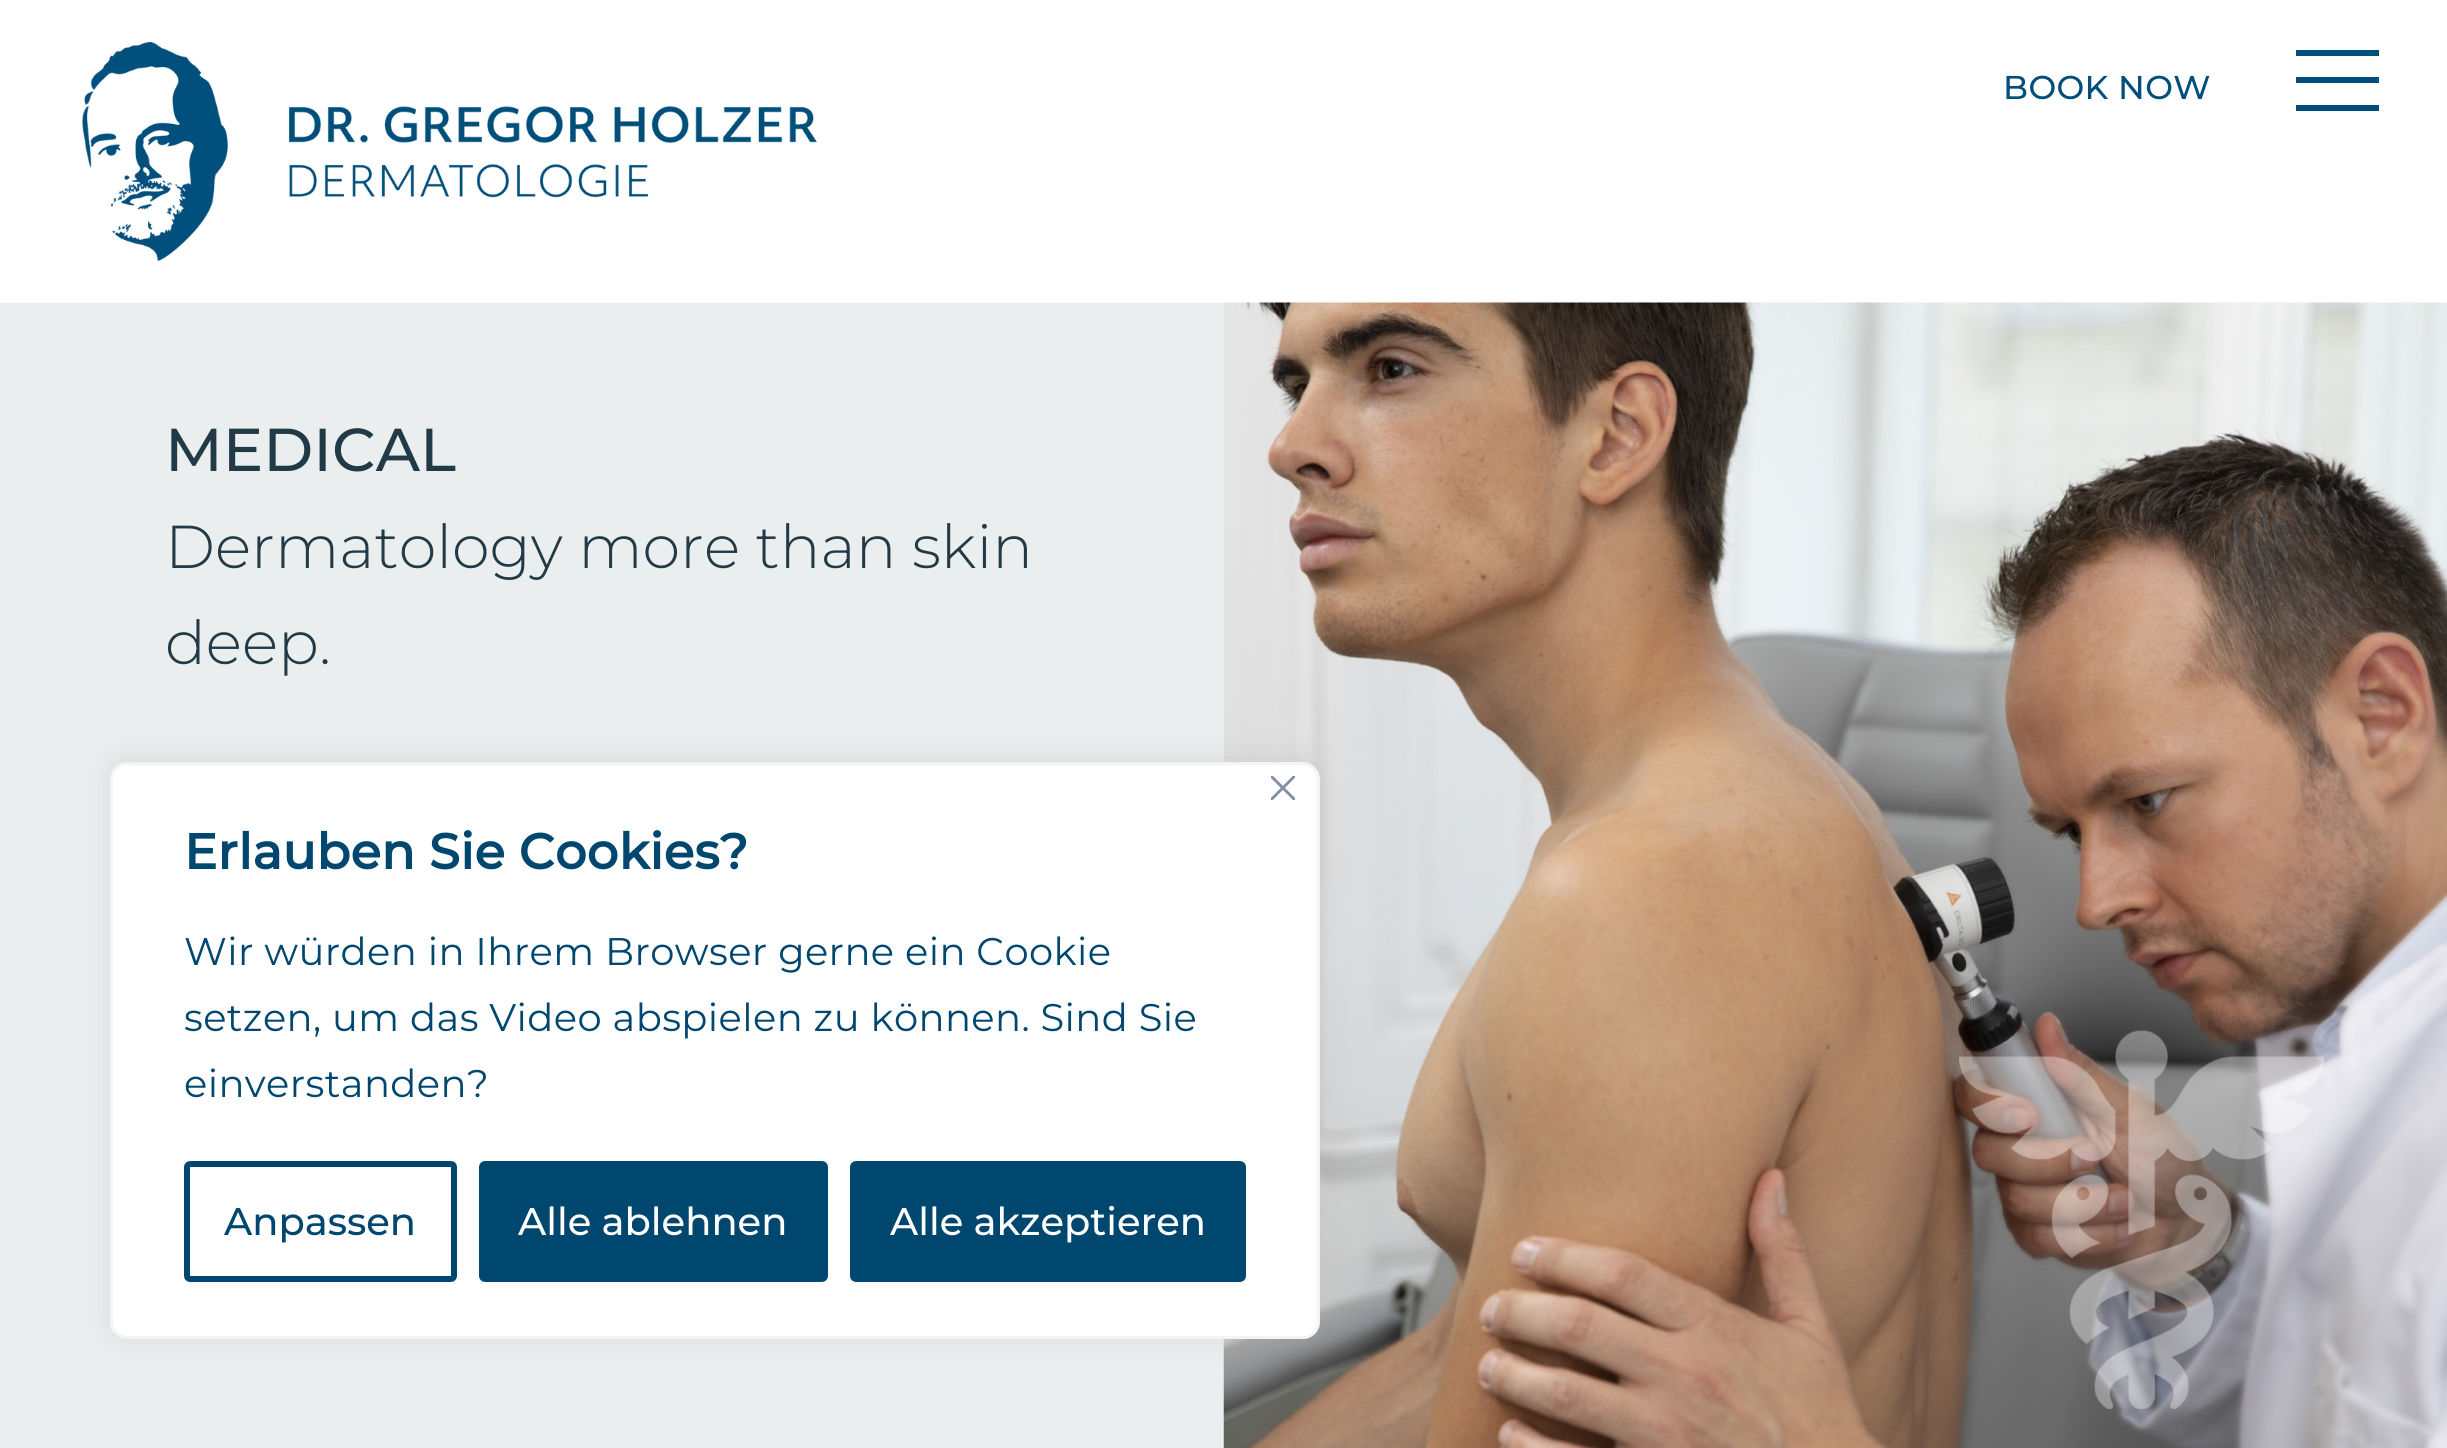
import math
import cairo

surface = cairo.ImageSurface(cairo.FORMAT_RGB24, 2447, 1448)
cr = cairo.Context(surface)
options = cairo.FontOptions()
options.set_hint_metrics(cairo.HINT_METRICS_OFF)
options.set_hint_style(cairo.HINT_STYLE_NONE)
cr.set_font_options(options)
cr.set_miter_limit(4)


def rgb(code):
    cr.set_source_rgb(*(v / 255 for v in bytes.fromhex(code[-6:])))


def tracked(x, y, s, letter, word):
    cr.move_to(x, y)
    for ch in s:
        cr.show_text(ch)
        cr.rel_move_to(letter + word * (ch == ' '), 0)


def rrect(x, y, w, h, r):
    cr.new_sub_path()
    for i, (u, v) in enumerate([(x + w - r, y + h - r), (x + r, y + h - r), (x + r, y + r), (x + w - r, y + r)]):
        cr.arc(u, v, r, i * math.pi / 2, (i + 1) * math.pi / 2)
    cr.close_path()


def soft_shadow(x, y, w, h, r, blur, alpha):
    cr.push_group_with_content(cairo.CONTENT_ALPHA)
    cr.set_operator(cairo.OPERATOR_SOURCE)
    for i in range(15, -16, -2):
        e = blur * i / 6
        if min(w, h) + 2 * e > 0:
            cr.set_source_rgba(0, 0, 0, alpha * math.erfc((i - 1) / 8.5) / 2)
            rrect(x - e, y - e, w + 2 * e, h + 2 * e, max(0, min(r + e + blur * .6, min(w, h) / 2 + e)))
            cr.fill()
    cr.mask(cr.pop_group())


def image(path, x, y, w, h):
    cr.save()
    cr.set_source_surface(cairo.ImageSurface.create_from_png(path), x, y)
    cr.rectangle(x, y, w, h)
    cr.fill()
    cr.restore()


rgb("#ffffff")
cr.paint()
image("img/1.png", 82, 42, 735, 219)
for x, y, w, h, color in [
    (2296, 77, 83, 6, "#004f7b"),
    (2296, 50, 83, 6, "#004f7b"),
    (2296, 105, 83, 6, "#004f7b"),
    (0, 303, 1224, 1145, "#eaeeef"),
]:
    rgb(color)
    cr.rectangle(x, y, w, h)
    cr.fill()
image("img/2.png", 1223, 302, 1224, 1146)
rgb("#acabab")
soft_shadow(110, 759, 1210, 578, 17, 14, 0.3)
rgb("#ffffff")
rrect(111.5, 763.5, 1207, 574, 15.5)
cr.fill_preserve()
rgb("#f4f4f4")
cr.set_line_width(3)
cr.stroke()
image("img/3.png", 1271, 776, 24, 24)
rrect(187, 1164, 267, 115, 3)
rgb("#004770")
cr.set_line_width(6)
cr.stroke()
rrect(482, 1164, 343, 115, 3)
cr.fill_preserve()
cr.stroke()
rrect(853, 1164, 390, 115, 3)
cr.fill_preserve()
cr.stroke()
cr.select_font_face("Montserrat Thin")
cr.set_font_size(33)
rgb("#004f7b")
tracked(2003, 99, "BOOK NOW", 0.4, 0)
cr.set_font_size(60.5)
rgb("#223946")
cr.move_to(165, 471)
cr.show_text("MEDICAL")
cr.select_font_face("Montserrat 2 Thin")
cr.move_to(165, 568)
cr.show_text("Dermatology more than skin")
cr.move_to(165, 664)
cr.show_text("deep.")
cr.select_font_face("Montserrat", cairo.FONT_SLANT_NORMAL, cairo.FONT_WEIGHT_BOLD)
cr.set_font_size(49.5)
rgb("#004770")
tracked(184, 869, "Erlauben Sie Cookies?", 0.4, 0)
cr.select_font_face("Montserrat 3 Thin")
cr.set_font_size(38.5)
for x, y, s in [
    (184, 965, "Wir würden in Ihrem Browser gerne ein Cookie"),
    (184, 1031, "setzen, um das Video abspielen zu können. Sind Sie"),
    (184, 1097, "einverstanden?"),
]:
    tracked(x, y, s, 0.4, 0)
cr.select_font_face("Montserrat Thin")
cr.move_to(224, 1235)
cr.show_text("Anpassen")
rgb("#ffffff")
cr.move_to(518, 1235)
cr.show_text("Alle ablehnen")
cr.move_to(890, 1235)
cr.show_text("Alle akzeptieren")
surface.write_to_png("page.png")
